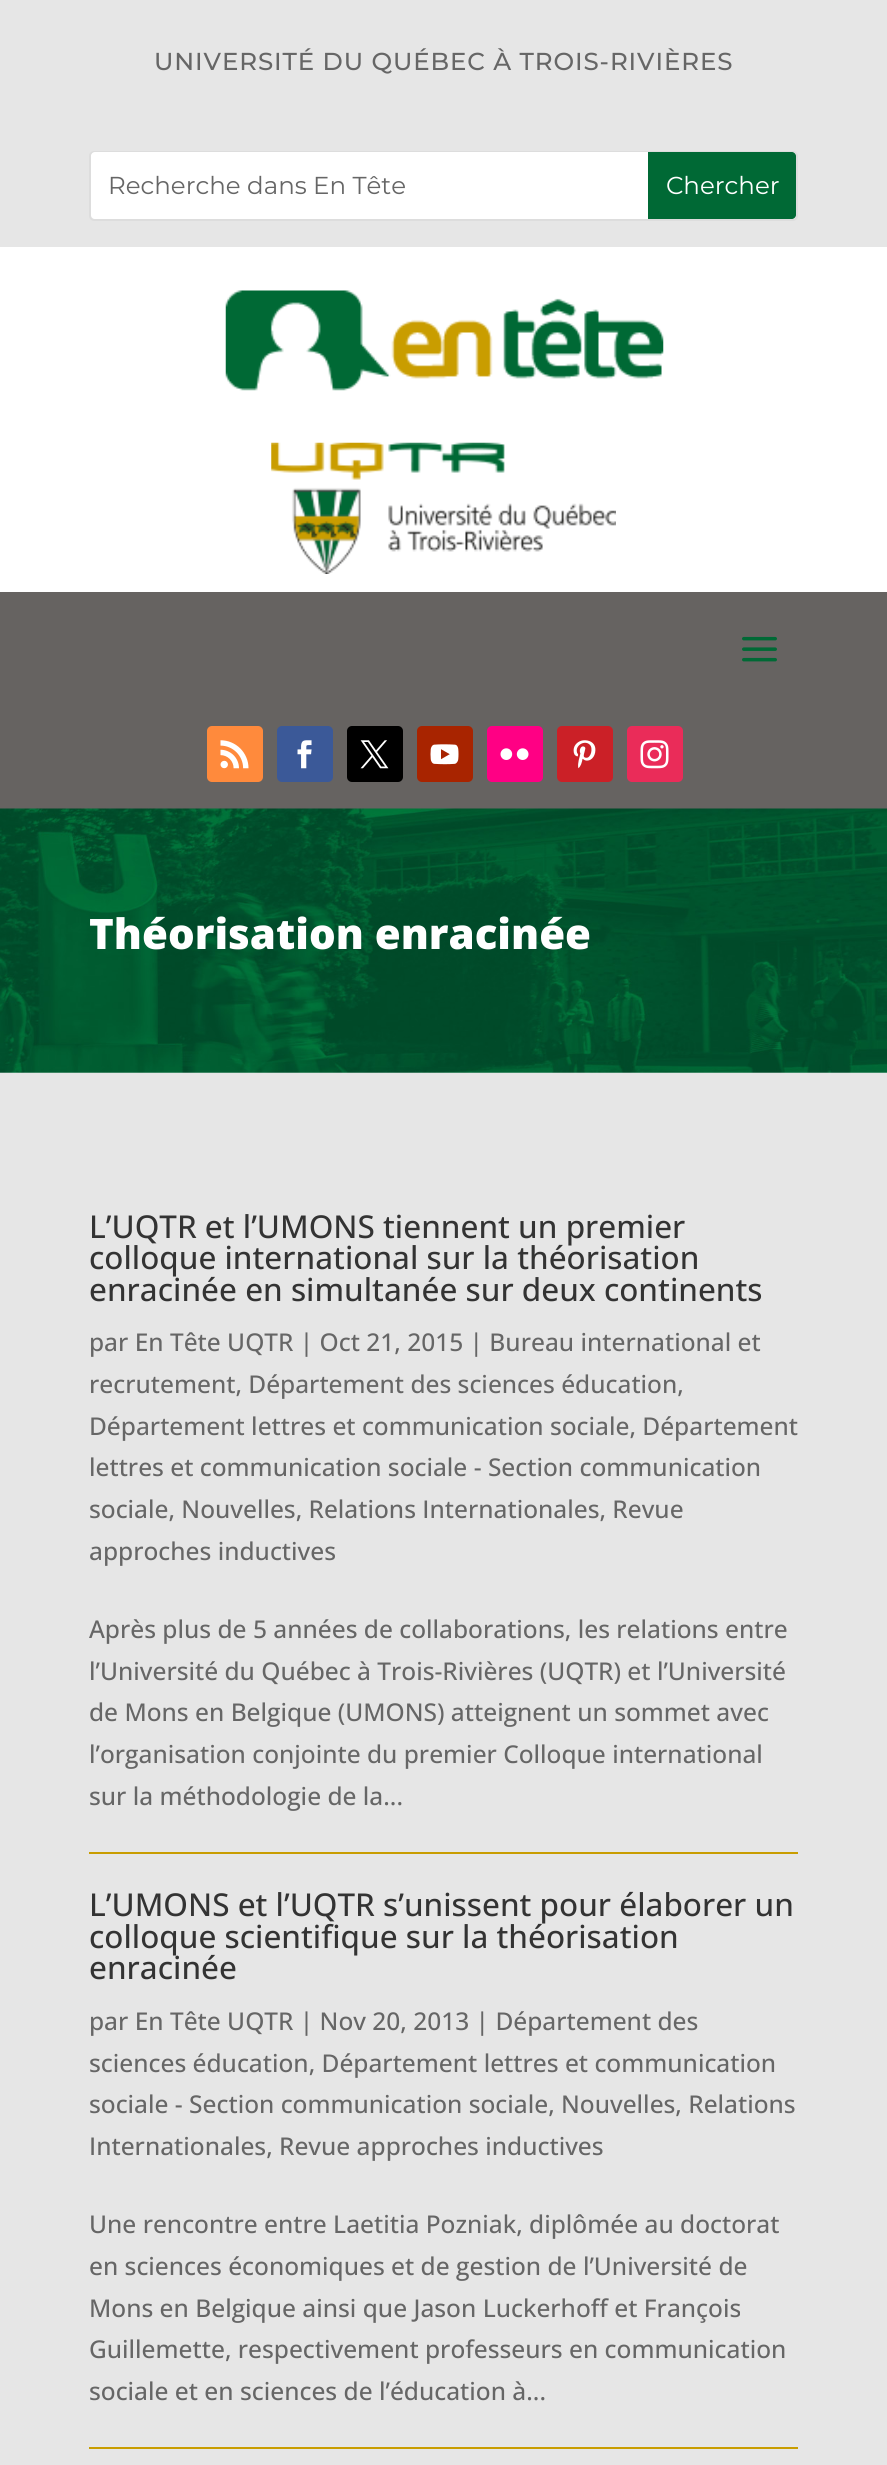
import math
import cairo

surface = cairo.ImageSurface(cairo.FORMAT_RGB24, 887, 2465)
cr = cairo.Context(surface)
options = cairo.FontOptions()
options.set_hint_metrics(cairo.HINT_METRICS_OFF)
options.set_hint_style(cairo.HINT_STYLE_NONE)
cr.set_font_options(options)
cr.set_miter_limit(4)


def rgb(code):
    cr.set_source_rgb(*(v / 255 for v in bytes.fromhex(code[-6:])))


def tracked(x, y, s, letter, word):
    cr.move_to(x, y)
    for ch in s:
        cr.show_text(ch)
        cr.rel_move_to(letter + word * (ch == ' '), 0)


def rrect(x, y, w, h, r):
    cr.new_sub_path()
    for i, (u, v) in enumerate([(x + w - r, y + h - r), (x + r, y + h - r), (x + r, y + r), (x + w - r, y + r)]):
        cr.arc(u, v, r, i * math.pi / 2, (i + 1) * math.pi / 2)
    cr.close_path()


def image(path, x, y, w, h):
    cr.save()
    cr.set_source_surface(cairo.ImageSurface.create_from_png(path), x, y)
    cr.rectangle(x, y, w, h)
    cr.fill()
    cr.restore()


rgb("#ffffff")
cr.paint()
rgb("#e6e6e6")
cr.rectangle(0, 0, 887, 247)
cr.fill()
rrect(90, 152, 707, 68, 4)
rgb("#dddddd")
cr.stroke()
rgb("#ffffff")
rrect(91, 152, 705, 67, 4)
cr.fill()
rgb("#006935")
cr.new_path()
cr.move_to(648, 152)
cr.line_to(792, 152)
cr.curve_to(794, 152, 796, 154, 796, 156)
cr.line_to(796, 215)
cr.curve_to(796, 217, 794, 219, 792, 219)
cr.line_to(648, 219)
cr.close_path()
cr.fill()
image("img/1.png", 225, 290, 439, 101)
image("img/2.png", 271, 442, 345, 132)
rgb("#666361")
cr.rectangle(0, 592, 887, 217)
cr.fill()
image("img/3.png", 742, 636, 35, 26)
rgb("#ff8a3c")
rrect(207, 726, 56, 56, 5)
cr.fill()
image("img/4.png", 220, 740, 29, 29)
rgb("#3b5998")
rrect(277, 726, 56, 56, 5)
cr.fill()
image("img/5.png", 297, 740, 15, 29)
rgb("#000000")
rrect(347, 726, 56, 56, 5)
cr.fill()
image("img/6.png", 360, 740, 29, 29)
rgb("#a82400")
rrect(417, 726, 56, 56, 5)
cr.fill()
image("img/7.png", 430, 744, 29, 21)
rgb("#ff0084")
rrect(487, 726, 56, 56, 5)
cr.fill()
image("img/8.png", 500, 748, 29, 12)
rgb("#cb2027")
rrect(557, 726, 56, 56, 5)
cr.fill()
image("img/9.png", 573, 740, 23, 29)
rgb("#ea2c59")
rrect(627, 726, 56, 56, 5)
cr.fill()
image("img/10.png", 640, 740, 29, 29)
image("img/11.png", 0, 808, 887, 265)
for x, y, w, h, color in [
    (0, 1073, 887, 1392, "#e6e6e6"),
    (89, 1852, 709, 2, "#c99d00"),
    (89, 2447, 709, 2, "#c99d00"),
]:
    rgb(color)
    cr.rectangle(x, y, w, h)
    cr.fill()
cr.select_font_face("Montserrat Medium")
cr.set_font_size(24.5)
rgb("#666666")
tracked(154, 70, "UNIVERSITÉ DU QUÉBEC À TROIS-RIVIÈRES", 0.9, 0)
cr.select_font_face("Montserrat")
cr.move_to(108, 194)
cr.show_text("Recherche dans En Tête")
rgb("#ffffff")
cr.move_to(666, 194)
cr.show_text("Chercher")
cr.select_font_face("Open Sans ExtraBold")
cr.set_font_size(42)
cr.move_to(89, 949)
cr.show_text("Théorisation enracinée")
cr.select_font_face("Open Sans Medium")
cr.set_font_size(31.5)
rgb("#333333")
for x, y, s in [
    (89, 1238, "L’UQTR et l’UMONS tiennent un premier"),
    (89, 1269, "colloque international sur la théorisation"),
    (89, 1301, "enracinée en simultanée sur deux continents"),
]:
    cr.move_to(x, y)
    cr.show_text(s)
cr.set_font_size(24.5)
rgb("#666666")
for x, y, s in [
    (89, 1351, "par En Tête UQTR | Oct 21, 2015 | Bureau international et"),
    (89, 1393, "recrutement, Département des sciences éducation,"),
    (89, 1435, "Département lettres et communication sociale, Département"),
    (89, 1476, "lettres et communication sociale - Section communication"),
    (89, 1518, "sociale, Nouvelles, Relations Internationales, Revue"),
    (89, 1560, "approches inductives"),
    (89, 1638, "Après plus de 5 années de collaborations, les relations entre"),
    (89, 1680, "l’Université du Québec à Trois-Rivières (UQTR) et l’Université"),
    (89, 1721, "de Mons en Belgique (UMONS) atteignent un sommet avec"),
    (89, 1763, "l’organisation conjointe du premier Colloque international"),
    (89, 1805, "sur la méthodologie de la..."),
]:
    cr.move_to(x, y)
    cr.show_text(s)
cr.set_font_size(31.5)
rgb("#333333")
for x, y, s in [
    (89, 1916, "L’UMONS et l’UQTR s’unissent pour élaborer un"),
    (89, 1948, "colloque scientifique sur la théorisation"),
    (89, 1979, "enracinée"),
]:
    cr.move_to(x, y)
    cr.show_text(s)
cr.set_font_size(24.5)
rgb("#666666")
for x, y, s in [
    (89, 2030, "par En Tête UQTR | Nov 20, 2013 | Département des"),
    (89, 2072, "sciences éducation, Département lettres et communication"),
    (89, 2113, "sociale - Section communication sociale, Nouvelles, Relations"),
    (89, 2155, "Internationales, Revue approches inductives"),
    (89, 2233, "Une rencontre entre Laetitia Pozniak, diplômée au doctorat"),
    (89, 2275, "en sciences économiques et de gestion de l’Université de"),
    (89, 2317, "Mons en Belgique ainsi que Jason Luckerhoff et François"),
    (89, 2358, "Guillemette, respectivement professeurs en communication"),
    (89, 2400, "sociale et en sciences de l’éducation à..."),
]:
    cr.move_to(x, y)
    cr.show_text(s)
surface.write_to_png("page.png")
